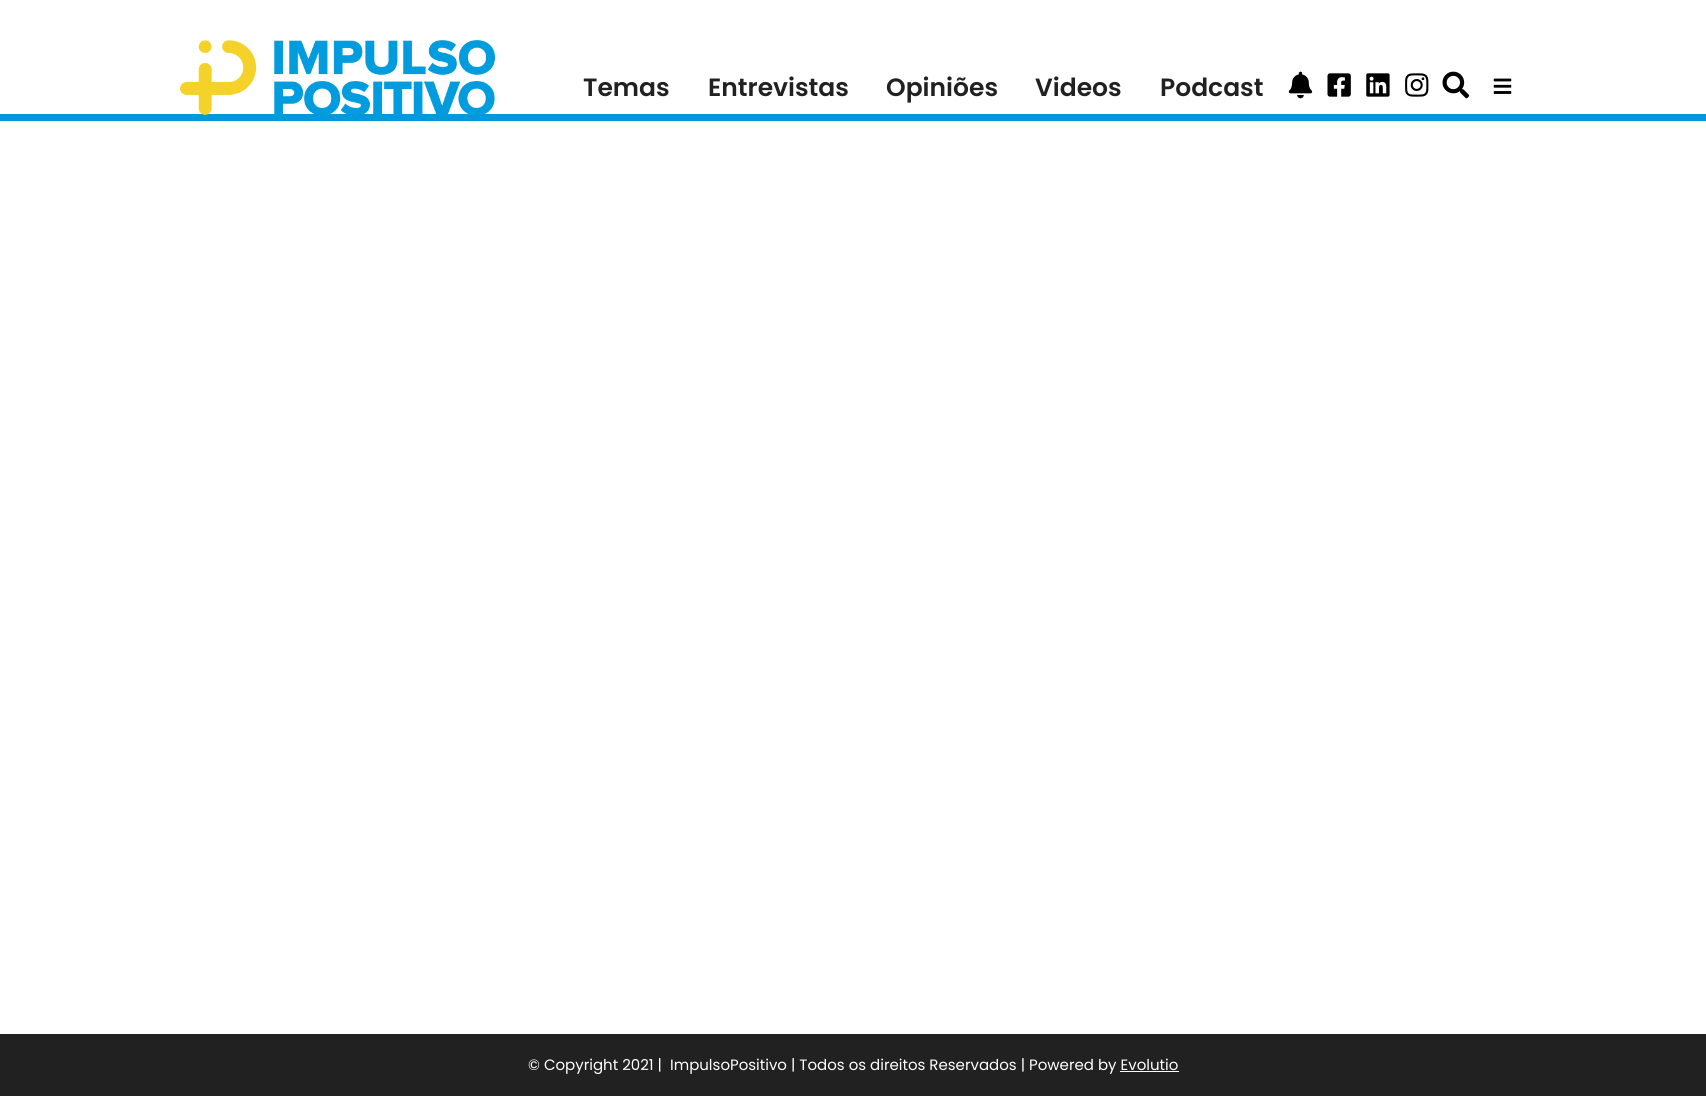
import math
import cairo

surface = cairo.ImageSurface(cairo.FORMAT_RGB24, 1706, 1096)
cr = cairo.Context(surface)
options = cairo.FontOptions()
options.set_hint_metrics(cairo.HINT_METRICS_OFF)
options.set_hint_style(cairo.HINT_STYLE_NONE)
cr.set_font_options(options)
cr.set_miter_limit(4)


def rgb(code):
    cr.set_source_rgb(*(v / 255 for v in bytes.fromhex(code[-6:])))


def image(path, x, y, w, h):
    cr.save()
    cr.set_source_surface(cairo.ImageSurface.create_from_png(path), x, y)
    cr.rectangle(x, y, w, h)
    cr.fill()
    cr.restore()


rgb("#ffffff")
cr.paint()
rgb("#0099db")
cr.rectangle(0, 114, 1706, 7)
cr.fill()
image("img/1.png", 180, 40, 315, 75)
image("img/2.png", 1288, 71, 25, 28)
image("img/3.png", 1327, 73, 24, 24)
image("img/4.png", 1366, 73, 24, 24)
image("img/5.png", 1405, 73, 24, 24)
image("img/6.png", 1442, 71, 28, 28)
image("img/7.png", 1493, 78, 19, 16)
rgb("#212121")
cr.rectangle(0, 1034, 1706, 62)
cr.fill()
rgb("#ffffff")
cr.rectangle(1120, 1071, 59, 1)
cr.fill()
cr.select_font_face("Poppins SemiBold")
cr.set_font_size(25)
rgb("#212121")
for x, y, s in [
    (583, 96, "Temas"),
    (708, 96, "Entrevistas"),
    (886, 96, "Opiniões"),
    (1035, 96, "Videos"),
    (1160, 96, "Podcast"),
]:
    cr.move_to(x, y)
    cr.show_text(s)
cr.select_font_face("Poppins")
cr.set_font_size(15)
rgb("#ffffff")
cr.move_to(528, 1070)
cr.show_text("© Copyright 2021 |  ImpulsoPositivo | Todos os direitos Reservados | Powered by Evolutio")
surface.write_to_png("page.png")
